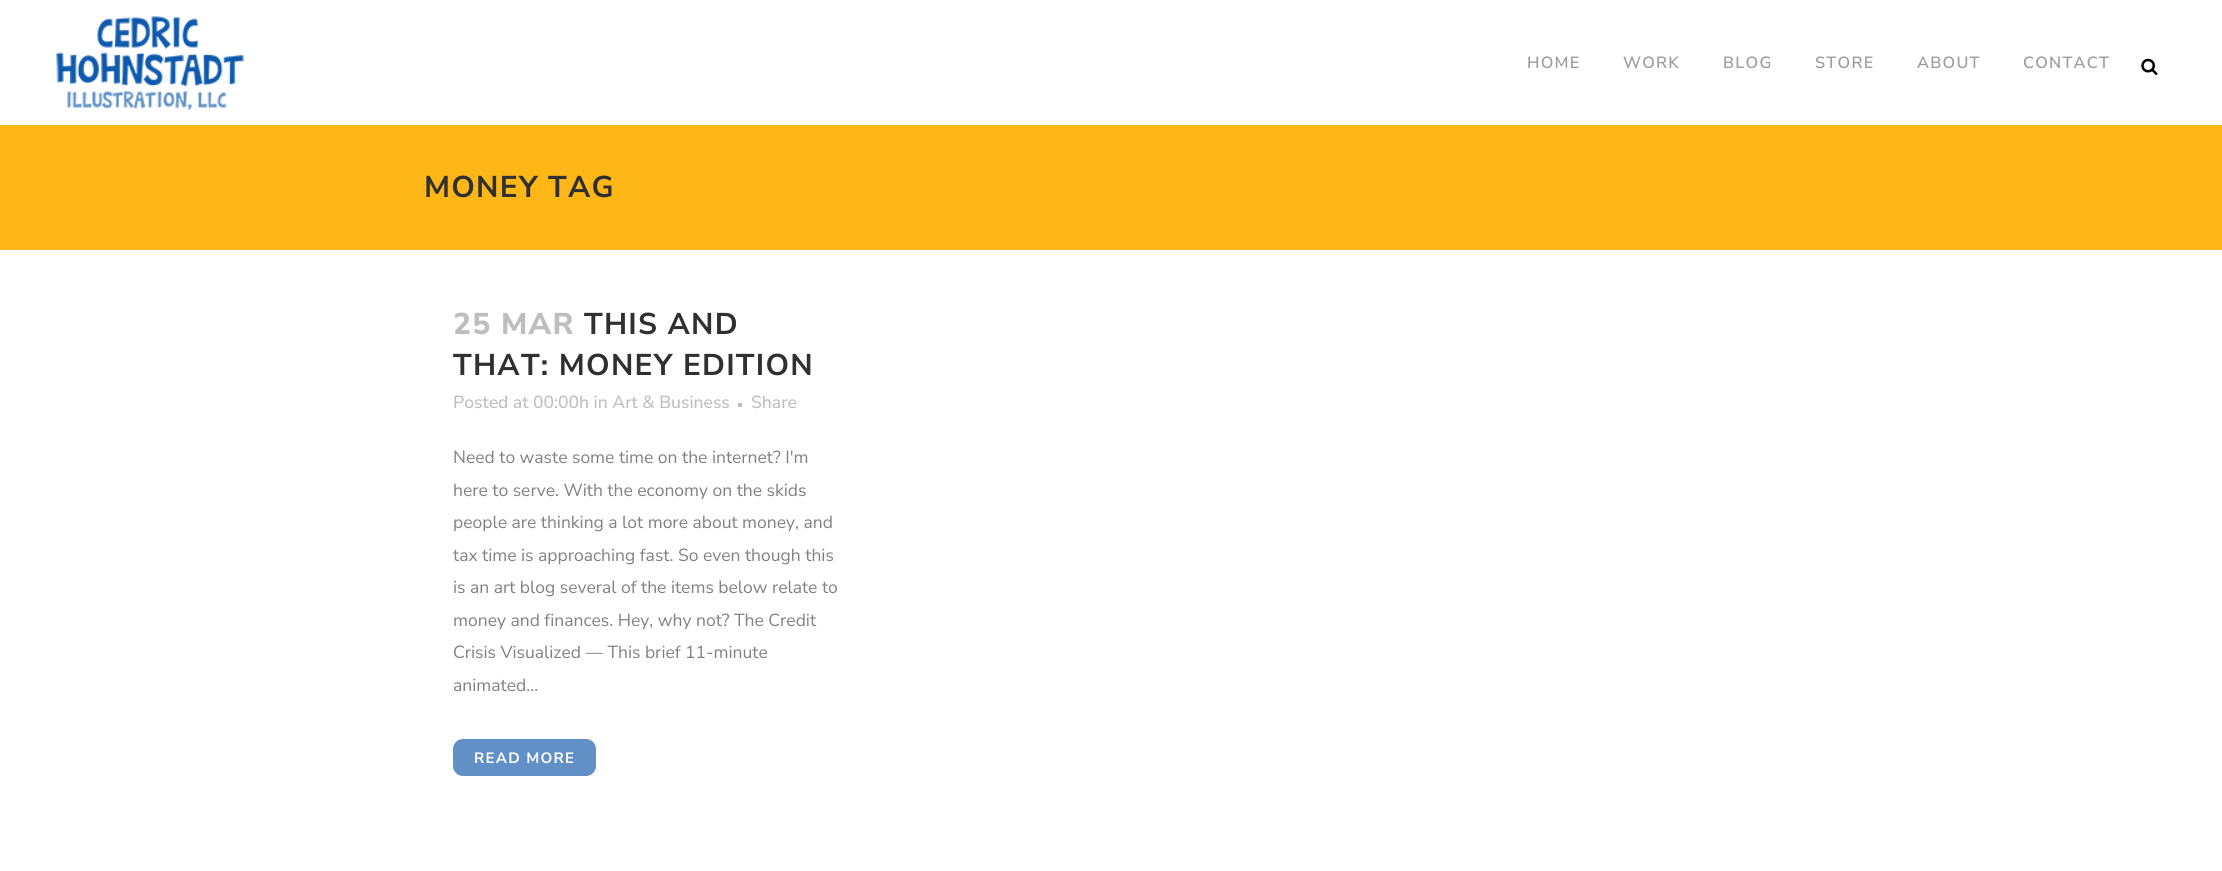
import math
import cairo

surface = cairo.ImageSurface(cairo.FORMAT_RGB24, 2222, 871)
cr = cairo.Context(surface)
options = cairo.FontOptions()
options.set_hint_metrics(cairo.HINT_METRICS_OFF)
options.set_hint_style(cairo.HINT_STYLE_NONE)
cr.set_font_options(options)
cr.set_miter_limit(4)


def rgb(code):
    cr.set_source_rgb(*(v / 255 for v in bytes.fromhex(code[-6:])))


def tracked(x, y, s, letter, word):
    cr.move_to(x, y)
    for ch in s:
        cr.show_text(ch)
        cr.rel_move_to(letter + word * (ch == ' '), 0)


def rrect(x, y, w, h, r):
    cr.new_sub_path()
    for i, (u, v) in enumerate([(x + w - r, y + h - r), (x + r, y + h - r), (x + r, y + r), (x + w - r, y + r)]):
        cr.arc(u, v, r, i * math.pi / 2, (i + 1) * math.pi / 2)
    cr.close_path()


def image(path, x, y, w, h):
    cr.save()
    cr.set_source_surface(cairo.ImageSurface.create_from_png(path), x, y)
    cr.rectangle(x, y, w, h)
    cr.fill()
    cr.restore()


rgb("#ffffff")
cr.paint()
image("img/1.png", 56, 16, 188, 94)
image("img/2.png", 2141, 58, 17, 17)
rgb("#ffb717")
cr.rectangle(0, 125, 2222, 125)
cr.fill()
rgb("#bebebe")
cr.rectangle(738, 403, 4, 4)
cr.fill()
rgb("#6090c6")
rrect(453, 739, 143, 37, 10)
cr.fill()
cr.select_font_face("Nunito Sans SemiBold")
cr.set_font_size(16.25)
rgb("#9d9d9d")
for x, y, s in [
    (1527, 68, "HOME"),
    (1623, 68, "WORK"),
    (1723, 68, "BLOG"),
    (1815, 68, "STORE"),
    (1917, 68, "ABOUT"),
    (2023, 68, "CONTACT"),
]:
    tracked(x, y, s, 1.25, 0)
cr.select_font_face("Nunito Sans", cairo.FONT_SLANT_NORMAL, cairo.FONT_WEIGHT_BOLD)
cr.set_font_size(30)
rgb("#303030")
tracked(424, 197, "MONEY TAG", 1.25, 0)
cr.select_font_face("Nunito Sans ExtraBold")
rgb("#bebebe")
tracked(453, 334, "25 MAR", 1.25, 0)
cr.select_font_face("Nunito Sans", cairo.FONT_SLANT_NORMAL, cairo.FONT_WEIGHT_BOLD)
rgb("#303030")
tracked(584, 334, "THIS AND", 1.25, 0)
tracked(453, 375, "THAT: MONEY EDITION", 1.25, 0)
cr.select_font_face("Nunito Sans Medium")
cr.set_font_size(17.5)
rgb("#bebebe")
cr.move_to(453, 408)
cr.show_text("Posted at 00:00h in Art & Business")
cr.move_to(751, 408)
cr.show_text("Share")
cr.select_font_face("Nunito Sans")
rgb("#818181")
for x, y, s in [
    (453, 463, "Need to waste some time on the internet? I'm"),
    (453, 496, "here to serve. With the economy on the skids"),
    (453, 528, "people are thinking a lot more about money, and"),
    (453, 561, "tax time is approaching fast. So even though this"),
    (453, 593, "is an art blog several of the items below relate to"),
    (453, 626, "money and finances. Hey, why not? The Credit"),
    (453, 658, "Crisis Visualized — This brief 11-minute"),
    (453, 691, "animated..."),
]:
    cr.move_to(x, y)
    cr.show_text(s)
cr.select_font_face("Nunito Sans", cairo.FONT_SLANT_NORMAL, cairo.FONT_WEIGHT_BOLD)
cr.set_font_size(15)
rgb("#ffffff")
tracked(474, 763, "READ MORE", 1.25, 0)
surface.write_to_png("page.png")
